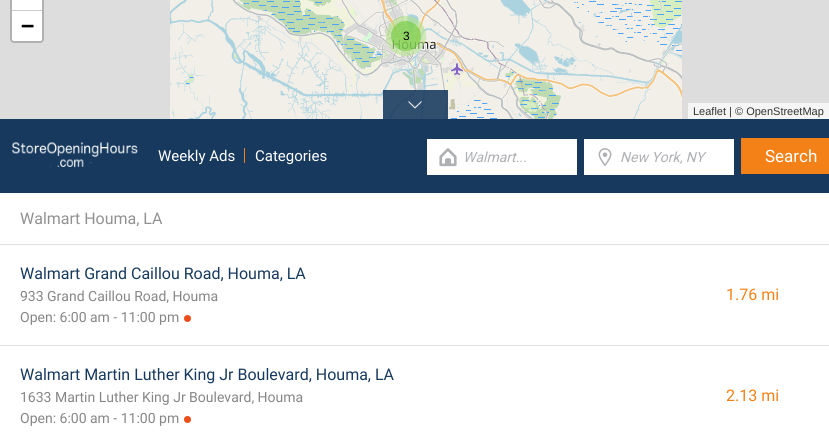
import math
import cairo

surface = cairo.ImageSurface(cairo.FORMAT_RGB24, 829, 439)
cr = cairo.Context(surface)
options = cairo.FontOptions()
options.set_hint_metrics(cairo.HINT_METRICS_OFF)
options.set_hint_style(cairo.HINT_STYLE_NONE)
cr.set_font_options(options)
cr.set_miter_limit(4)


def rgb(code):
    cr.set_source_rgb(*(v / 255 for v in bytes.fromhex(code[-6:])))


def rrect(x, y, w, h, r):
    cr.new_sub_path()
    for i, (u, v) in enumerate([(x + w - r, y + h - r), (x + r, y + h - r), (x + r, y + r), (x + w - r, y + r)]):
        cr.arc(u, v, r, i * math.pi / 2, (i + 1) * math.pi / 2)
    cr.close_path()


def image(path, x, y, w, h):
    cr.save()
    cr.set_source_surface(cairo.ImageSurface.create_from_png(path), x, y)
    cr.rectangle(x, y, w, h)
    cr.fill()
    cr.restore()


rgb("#ffffff")
cr.paint()
rgb("#dddddd")
cr.rectangle(0, 0, 829, 119)
cr.fill()
rrect(11, -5, 32, 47, 3)
rgb("#b1b1b1")
cr.stroke()
rgb("#ffffff")
cr.rectangle(12, 0, 30, 10)
cr.fill()
rgb("#cccccc")
cr.rectangle(12, 10, 30, 1)
cr.fill()
rgb("#ffffff")
cr.new_path()
cr.move_to(12, 11)
cr.line_to(42, 11)
cr.line_to(42, 39)
cr.curve_to(42, 40, 41, 41, 40, 41)
cr.line_to(14, 41)
cr.curve_to(13, 41, 12, 40, 12, 39)
cr.close_path()
cr.fill()
rgb("#f5f5f5")
cr.rectangle(688, 103, 141, 16)
cr.fill()
image("img/1.png", 170, 0, 256, 95)
image("img/2.png", 426, 0, 256, 95)
image("img/3.png", 170, 95, 256, 24)
image("img/4.png", 426, 95, 256, 24)
cr.set_source_rgba(0.71, 0.886, 0.549, 0.6)
cr.arc(406, 36, 20, 0, 2 * math.pi)
cr.fill()
cr.set_source_rgba(0.431, 0.8, 0.224, 0.6)
cr.arc(406, 36, 15, 0, 2 * math.pi)
cr.fill()
rgb("#17395e")
cr.rectangle(0, 119, 829, 74)
cr.fill()
image("img/5.png", 11, 142, 127, 26)
rgb("#f38118")
cr.rectangle(244, 148, 1, 15)
cr.fill()
rgb("#ffffff")
cr.rectangle(427, 139, 150, 36)
cr.fill()
image("img/6.png", 439, 148, 18, 19)
cr.rectangle(584, 139, 150, 36)
cr.fill()
image("img/7.png", 598, 148, 14, 18)
rgb("#f38118")
cr.rectangle(741, 138, 88, 36)
cr.fill()
cr.set_source_rgba(0.09, 0.224, 0.369, 0.88)
cr.rectangle(383, 90, 65, 29)
cr.fill()
image("img/8.png", 408, 101, 14, 8)
rgb("#e0e0e0")
cr.rectangle(0, 244, 829, 1)
cr.fill()
cr.rectangle(0, 345, 829, 1)
cr.fill()
rgb("#ec4e1b")
cr.arc(187.5, 318.5, 3.5, 0, 2 * math.pi)
cr.fill()
cr.arc(187.5, 419.5, 3.5, 0, 2 * math.pi)
cr.fill()
cr.select_font_face("DejaVu Sans Mono", cairo.FONT_SLANT_NORMAL, cairo.FONT_WEIGHT_BOLD)
cr.set_font_size(22)
rgb("#000000")
cr.move_to(21, 33)
cr.show_text("−")
cr.select_font_face("Liberation Sans")
cr.set_font_size(11)
rgb("#333333")
cr.move_to(693, 115)
cr.show_text("Leaflet | © OpenStreetMap")
cr.set_font_size(12)
rgb("#000000")
cr.move_to(403, 40)
cr.show_text("3")
cr.select_font_face("Roboto")
cr.set_font_size(15)
rgb("#ffffff")
cr.move_to(158, 161)
cr.show_text("Weekly Ads")
cr.move_to(255, 161)
cr.show_text("Categories")
cr.select_font_face("Roboto", cairo.FONT_SLANT_ITALIC)
cr.set_font_size(14)
rgb("#aeb0b3")
cr.move_to(463, 162)
cr.show_text("Walmart...")
cr.move_to(620, 162)
cr.show_text("New York, NY")
cr.select_font_face("Roboto")
cr.set_font_size(17)
rgb("#ffffff")
cr.move_to(765, 162)
cr.show_text("Search")
cr.set_font_size(16)
rgb("#919191")
cr.move_to(20, 224)
cr.show_text("Walmart Houma, LA")
rgb("#17395e")
cr.move_to(20, 279)
cr.show_text("Walmart Grand Caillou Road, Houma, LA")
cr.set_font_size(14)
rgb("#868686")
cr.move_to(20, 301)
cr.show_text("933 Grand Caillou Road, Houma")
cr.set_font_size(16)
rgb("#f38118")
cr.move_to(726, 300)
cr.show_text("1.76 mi")
cr.set_font_size(14)
rgb("#868686")
cr.move_to(20, 322)
cr.show_text("Open: 6:00 am - 11:00 pm")
cr.set_font_size(16)
rgb("#17395e")
cr.move_to(20, 380)
cr.show_text("Walmart Martin Luther King Jr Boulevard, Houma, LA")
cr.set_font_size(14)
rgb("#868686")
cr.move_to(20, 402)
cr.show_text("1633 Martin Luther King Jr Boulevard, Houma")
cr.set_font_size(16)
rgb("#f38118")
cr.move_to(726, 401)
cr.show_text("2.13 mi")
cr.set_font_size(14)
rgb("#868686")
cr.move_to(20, 423)
cr.show_text("Open: 6:00 am - 11:00 pm")
surface.write_to_png("page.png")
